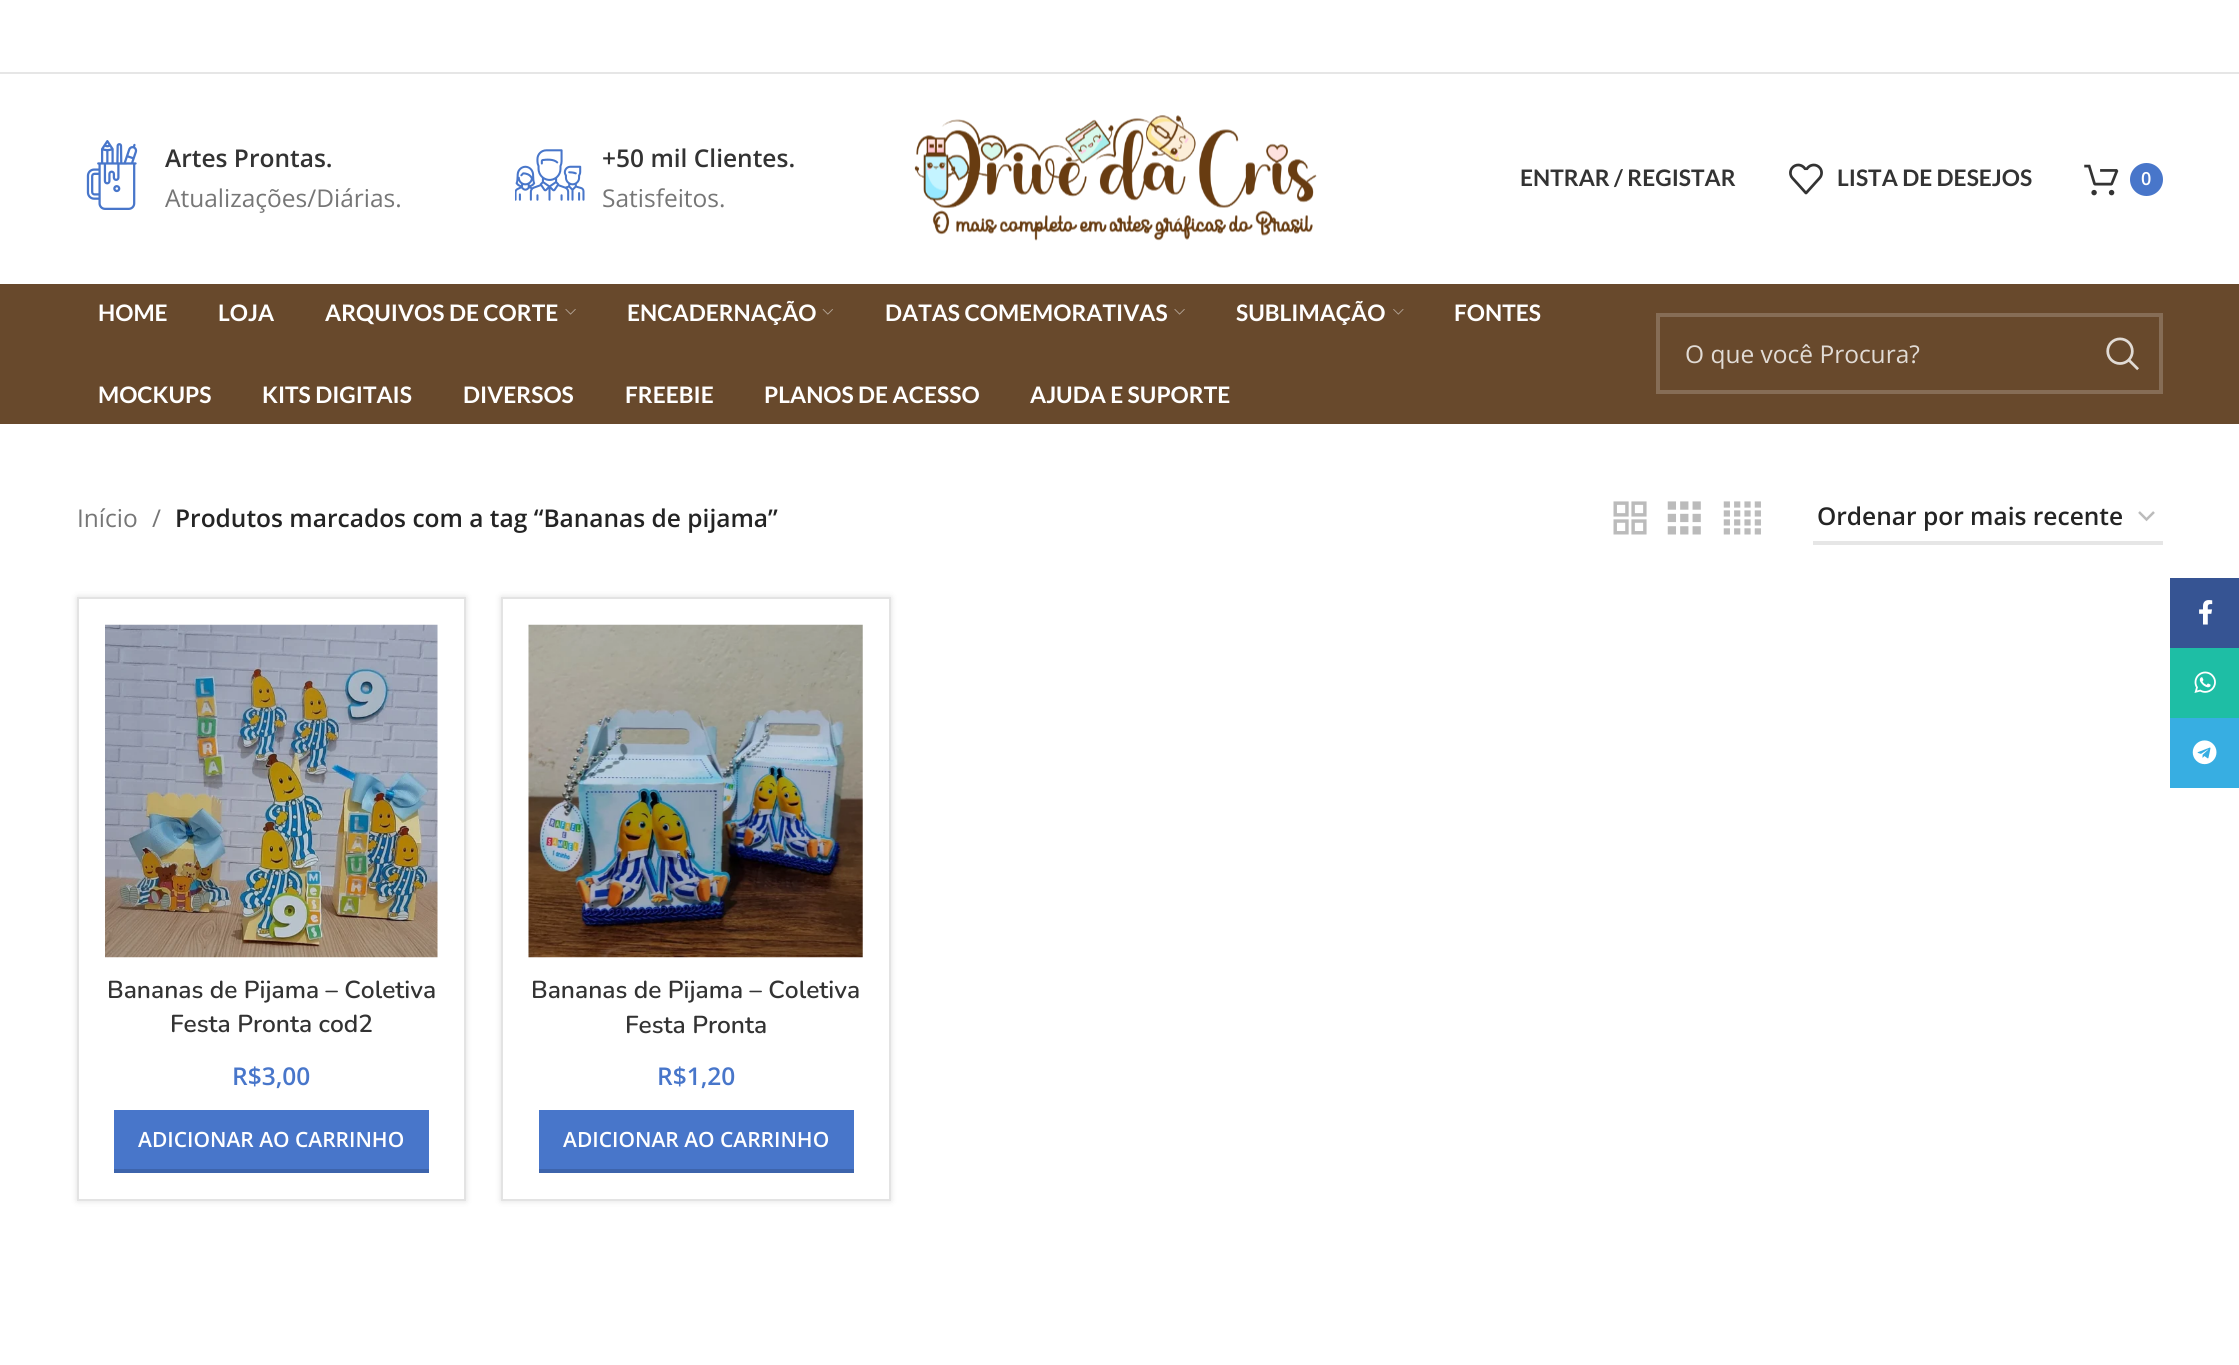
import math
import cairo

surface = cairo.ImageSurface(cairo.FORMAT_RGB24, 2239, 1365)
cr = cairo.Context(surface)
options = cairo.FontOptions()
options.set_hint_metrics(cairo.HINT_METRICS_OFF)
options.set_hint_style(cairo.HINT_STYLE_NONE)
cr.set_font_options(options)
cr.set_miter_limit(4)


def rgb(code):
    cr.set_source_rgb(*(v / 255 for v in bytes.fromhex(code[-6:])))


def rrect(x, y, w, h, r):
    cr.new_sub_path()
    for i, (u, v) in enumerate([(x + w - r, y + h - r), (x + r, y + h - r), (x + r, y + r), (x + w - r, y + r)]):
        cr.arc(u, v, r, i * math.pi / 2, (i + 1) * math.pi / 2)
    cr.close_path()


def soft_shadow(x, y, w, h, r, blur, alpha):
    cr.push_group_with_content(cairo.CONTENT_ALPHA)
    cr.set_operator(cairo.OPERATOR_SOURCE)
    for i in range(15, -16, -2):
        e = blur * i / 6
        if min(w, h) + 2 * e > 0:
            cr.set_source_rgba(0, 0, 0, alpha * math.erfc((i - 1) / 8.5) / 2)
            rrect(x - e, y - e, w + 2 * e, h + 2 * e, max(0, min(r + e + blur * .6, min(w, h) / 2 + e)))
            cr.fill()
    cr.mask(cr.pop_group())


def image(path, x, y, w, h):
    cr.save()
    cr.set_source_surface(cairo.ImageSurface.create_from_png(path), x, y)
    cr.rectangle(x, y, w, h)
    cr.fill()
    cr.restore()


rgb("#ffffff")
cr.paint()
rgb("#e6e6e6")
cr.rectangle(0, 72, 2239, 2)
cr.fill()
image("img/1.png", 86, 140, 52, 70)
image("img/2.png", 515, 149, 70, 52)
image("img/3.png", 914, 115, 403, 126)
image("img/4.png", 1789, 163, 34, 32)
image("img/5.png", 2084, 164, 35, 32)
rgb("#4876ca")
cr.arc(2146.5, 179.5, 16.5, 0, 2 * math.pi)
cr.fill()
rgb("#68492c")
cr.rectangle(0, 284, 2239, 140)
cr.fill()
image("img/6.png", 565, 309, 11, 6)
image("img/7.png", 822, 309, 11, 6)
image("img/6.png", 1174, 309, 11, 6)
image("img/8.png", 1393, 309, 11, 6)
cr.rectangle(1658, 315, 503, 77)
rgb("#866d56")
cr.set_line_width(4)
cr.stroke()
image("img/9.png", 2106, 337, 33, 34)
image("img/10.png", 1613, 501, 34, 34)
image("img/11.png", 1667, 501, 34, 34)
image("img/12.png", 1723, 501, 38, 34)
cr.new_path()
cr.move_to(2139, 512)
cr.line_to(2146.5, 519.5)
cr.line_to(2154, 512)
rgb("#bbbbbb")
cr.set_line_width(2.5)
cr.stroke()
rgb("#e6e6e6")
cr.rectangle(1813, 541, 350, 4)
cr.fill()
cr.save()
cr.set_fill_rule(cairo.FILL_RULE_EVEN_ODD)
cr.new_path()
cr.move_to(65, 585)
cr.line_to(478, 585)
cr.line_to(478, 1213)
cr.line_to(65, 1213)
cr.close_path()
cr.move_to(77, 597)
cr.line_to(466, 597)
cr.line_to(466, 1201)
cr.line_to(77, 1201)
cr.close_path()
cr.clip()
rgb("#000000")
soft_shadow(77, 597, 389, 604, 0, 3.5, 0.12)
cr.restore()
cr.rectangle(78, 598, 387, 602)
cr.set_source_rgba(0, 0, 0, 0.11)
cr.set_line_width(2)
cr.stroke()
image("img/13.png", 105, 624, 333, 334)
rgb("#4876ca")
cr.rectangle(114, 1110, 315, 59)
cr.fill()
rgb("#3d64ac")
cr.rectangle(114, 1169, 315, 4)
cr.fill()
cr.save()
cr.set_fill_rule(cairo.FILL_RULE_EVEN_ODD)
cr.new_path()
cr.move_to(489, 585)
cr.line_to(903, 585)
cr.line_to(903, 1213)
cr.line_to(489, 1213)
cr.close_path()
cr.move_to(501, 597)
cr.line_to(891, 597)
cr.line_to(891, 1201)
cr.line_to(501, 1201)
cr.close_path()
cr.clip()
rgb("#000000")
soft_shadow(501, 597, 390, 604, 0, 3.5, 0.12)
cr.restore()
cr.rectangle(502, 598, 388, 602)
cr.set_source_rgba(0, 0, 0, 0.11)
cr.stroke()
image("img/14.png", 528, 624, 335, 334)
for x, y, w, h, color in [
    (539, 1110, 315, 59, "#4876ca"),
    (539, 1169, 315, 4, "#3d64ac"),
    (2170, 578, 69, 70, "#365493"),
]:
    rgb(color)
    cr.rectangle(x, y, w, h)
    cr.fill()
image("img/15.png", 2199, 600, 14, 25)
rgb("#1ebea5")
cr.rectangle(2170, 648, 69, 70)
cr.fill()
image("img/16.png", 2194, 671, 22, 22)
rgb("#37aee2")
cr.rectangle(2170, 718, 69, 70)
cr.fill()
image("img/17.png", 2192, 740, 25, 25)
cr.select_font_face("Open Sans SemiBold")
cr.set_font_size(24.5)
rgb("#333333")
cr.move_to(165, 167)
cr.show_text("Artes Prontas.")
cr.select_font_face("Open Sans")
rgb("#767676")
cr.move_to(165, 207)
cr.show_text("Atualizações/Diárias.")
cr.select_font_face("Open Sans SemiBold")
rgb("#333333")
cr.move_to(602, 167)
cr.show_text("+50 mil Clientes.")
cr.select_font_face("Open Sans")
rgb("#767676")
cr.move_to(602, 207)
cr.show_text("Satisfeitos.")
cr.select_font_face("Lato", cairo.FONT_SLANT_NORMAL, cairo.FONT_WEIGHT_BOLD)
cr.set_font_size(22.75)
rgb("#333333")
cr.move_to(1520, 186)
cr.show_text("ENTRAR / REGISTAR")
cr.move_to(1837, 186)
cr.show_text("LISTA DE DESEJOS")
cr.select_font_face("Open Sans SemiBold")
cr.set_font_size(18)
rgb("#ffffff")
cr.move_to(2141, 185)
cr.show_text("0")
cr.select_font_face("Lato", cairo.FONT_SLANT_NORMAL, cairo.FONT_WEIGHT_BOLD)
cr.set_font_size(22.75)
for x, y, s in [
    (98, 321, "HOME"),
    (218, 321, "LOJA"),
    (325, 321, "ARQUIVOS DE CORTE"),
    (627, 321, "ENCADERNAÇÃO"),
    (885, 321, "DATAS COMEMORATIVAS"),
    (1236, 321, "SUBLIMAÇÃO"),
    (1454, 321, "FONTES"),
    (98, 403, "MOCKUPS"),
    (262, 403, "KITS DIGITAIS"),
    (463, 403, "DIVERSOS"),
    (625, 403, "FREEBIE"),
    (764, 403, "PLANOS DE ACESSO"),
    (1030, 403, "AJUDA E SUPORTE"),
]:
    cr.move_to(x, y)
    cr.show_text(s)
cr.select_font_face("Open Sans")
cr.set_font_size(24.5)
rgb("#e1dbd5")
cr.move_to(1685, 363)
cr.show_text("O que você Procura?")
rgb("#767676")
cr.move_to(77, 527)
cr.show_text("Início")
cr.move_to(152, 527)
cr.show_text("/")
cr.select_font_face("Open Sans SemiBold")
rgb("#242424")
cr.move_to(175, 527)
cr.show_text("Produtos marcados com a tag “Bananas de pijama”")
cr.move_to(1817, 525)
cr.show_text("Ordenar por mais recente")
cr.select_font_face("Nunito SemiBold")
rgb("#333333")
cr.move_to(107, 998)
cr.show_text("Bananas de Pijama – Coletiva")
cr.move_to(170, 1032)
cr.show_text("Festa Pronta cod2")
cr.select_font_face("Open Sans SemiBold")
rgb("#4876ca")
cr.move_to(232, 1085)
cr.show_text("R$3,00")
cr.set_font_size(21)
rgb("#ffffff")
cr.move_to(138, 1147)
cr.show_text("ADICIONAR AO CARRINHO")
cr.select_font_face("Nunito SemiBold")
cr.set_font_size(24.5)
rgb("#333333")
cr.move_to(531, 998)
cr.show_text("Bananas de Pijama – Coletiva")
cr.move_to(625, 1033)
cr.show_text("Festa Pronta")
cr.select_font_face("Open Sans SemiBold")
rgb("#4876ca")
cr.move_to(657, 1085)
cr.show_text("R$1,20")
cr.set_font_size(21)
rgb("#ffffff")
cr.move_to(563, 1147)
cr.show_text("ADICIONAR AO CARRINHO")
surface.write_to_png("page.png")
